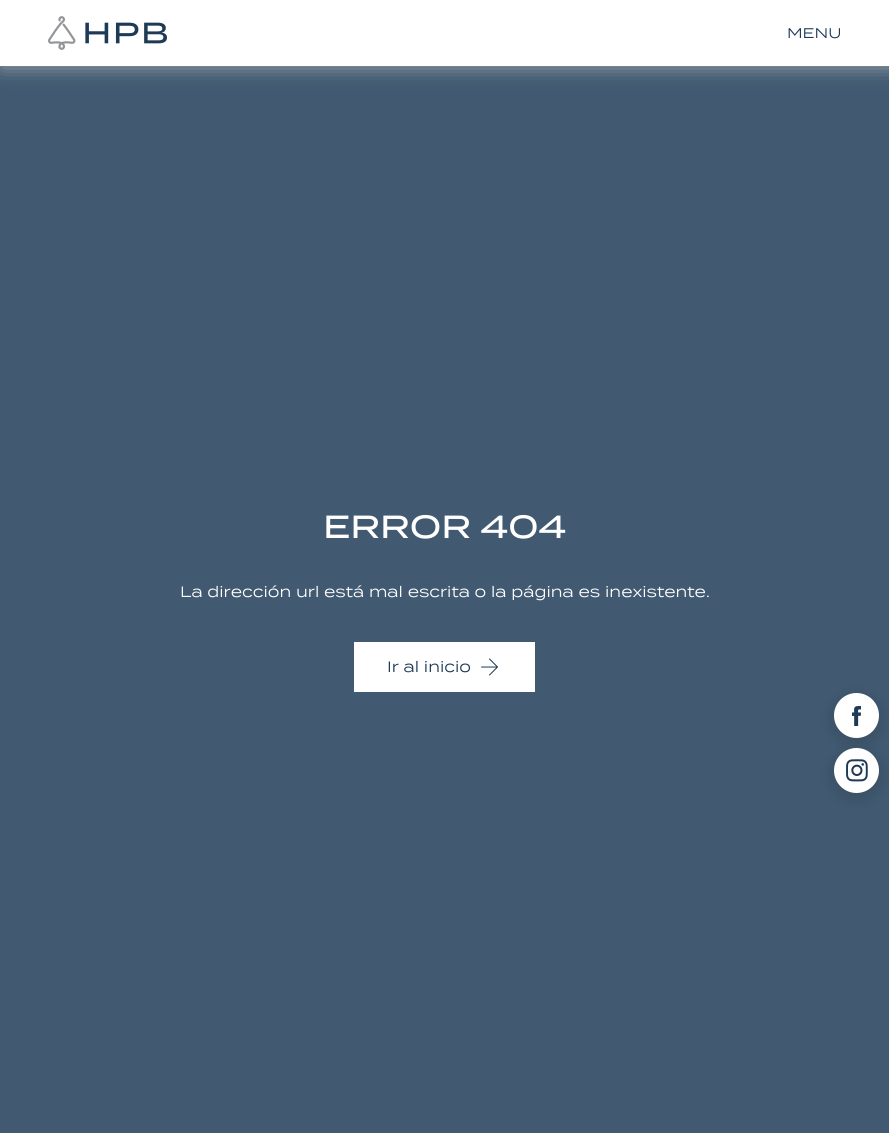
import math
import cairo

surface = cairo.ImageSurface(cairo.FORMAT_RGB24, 889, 1133)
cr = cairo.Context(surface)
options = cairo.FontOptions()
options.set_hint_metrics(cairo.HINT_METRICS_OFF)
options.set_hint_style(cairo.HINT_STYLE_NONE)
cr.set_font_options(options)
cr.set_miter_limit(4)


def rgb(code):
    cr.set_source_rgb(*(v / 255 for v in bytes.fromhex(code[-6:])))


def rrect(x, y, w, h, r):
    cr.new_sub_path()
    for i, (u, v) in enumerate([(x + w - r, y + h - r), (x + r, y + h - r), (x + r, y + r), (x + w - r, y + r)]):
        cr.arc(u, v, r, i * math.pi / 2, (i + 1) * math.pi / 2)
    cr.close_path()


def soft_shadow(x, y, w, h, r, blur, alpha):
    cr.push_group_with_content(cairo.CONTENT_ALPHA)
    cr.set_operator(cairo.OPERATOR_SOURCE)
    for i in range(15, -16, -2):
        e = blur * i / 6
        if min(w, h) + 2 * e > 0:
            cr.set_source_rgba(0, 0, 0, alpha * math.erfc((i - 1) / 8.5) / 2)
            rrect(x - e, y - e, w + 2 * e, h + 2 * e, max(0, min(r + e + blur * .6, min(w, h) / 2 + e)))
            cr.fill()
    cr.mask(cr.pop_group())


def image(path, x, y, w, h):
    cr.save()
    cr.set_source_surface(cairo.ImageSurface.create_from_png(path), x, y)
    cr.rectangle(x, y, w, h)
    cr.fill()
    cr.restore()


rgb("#415a71")
cr.paint()
rgb("#cccccc")
soft_shadow(2, -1, 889, 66, 0, 10, 0.8)
rgb("#ffffff")
cr.rectangle(0, 0, 889, 66)
cr.fill()
image("img/1.png", 48, 16, 119, 34)
cr.rectangle(354, 642, 181, 50)
cr.fill()
cr.new_path()
cr.move_to(481.5, 667)
cr.line_to(497.5, 667)
cr.move_to(497.5, 667)
cr.line_to(489.5, 659)
cr.move_to(497.5, 667)
cr.line_to(489.5, 675)
rgb("#1d3a56")
cr.set_line_width(1)
cr.set_line_cap(cairo.LINE_CAP_ROUND)
cr.set_line_join(cairo.LINE_JOIN_ROUND)
cr.stroke()
rgb("#000000")
soft_shadow(834, 697, 45, 45, 22.5, 8, 0.16)
rgb("#ffffff")
cr.arc(856.5, 715.5, 22.5, 0, 2 * math.pi)
cr.fill()
image("img/2.png", 852, 706, 9, 20)
rgb("#000000")
soft_shadow(834, 752, 45, 45, 22.5, 8, 0.16)
rgb("#ffffff")
cr.arc(856.5, 770.5, 22.5, 0, 2 * math.pi)
cr.fill()
image("img/3.png", 846, 759, 22, 23)
cr.select_font_face("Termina")
cr.set_font_size(14)
rgb("#1d3a56")
cr.move_to(787, 38)
cr.show_text("MENU")
cr.select_font_face("Termina Medium")
cr.set_font_size(32)
rgb("#ffffff")
cr.move_to(323, 538)
cr.show_text("ERROR 404")
cr.select_font_face("Termina")
cr.set_font_size(15)
cr.move_to(180, 597)
cr.show_text("La dirección url está mal escrita o la página es inexistente.")
rgb("#1d3a56")
cr.move_to(387, 672)
cr.show_text("Ir al inicio")
surface.write_to_png("page.png")
